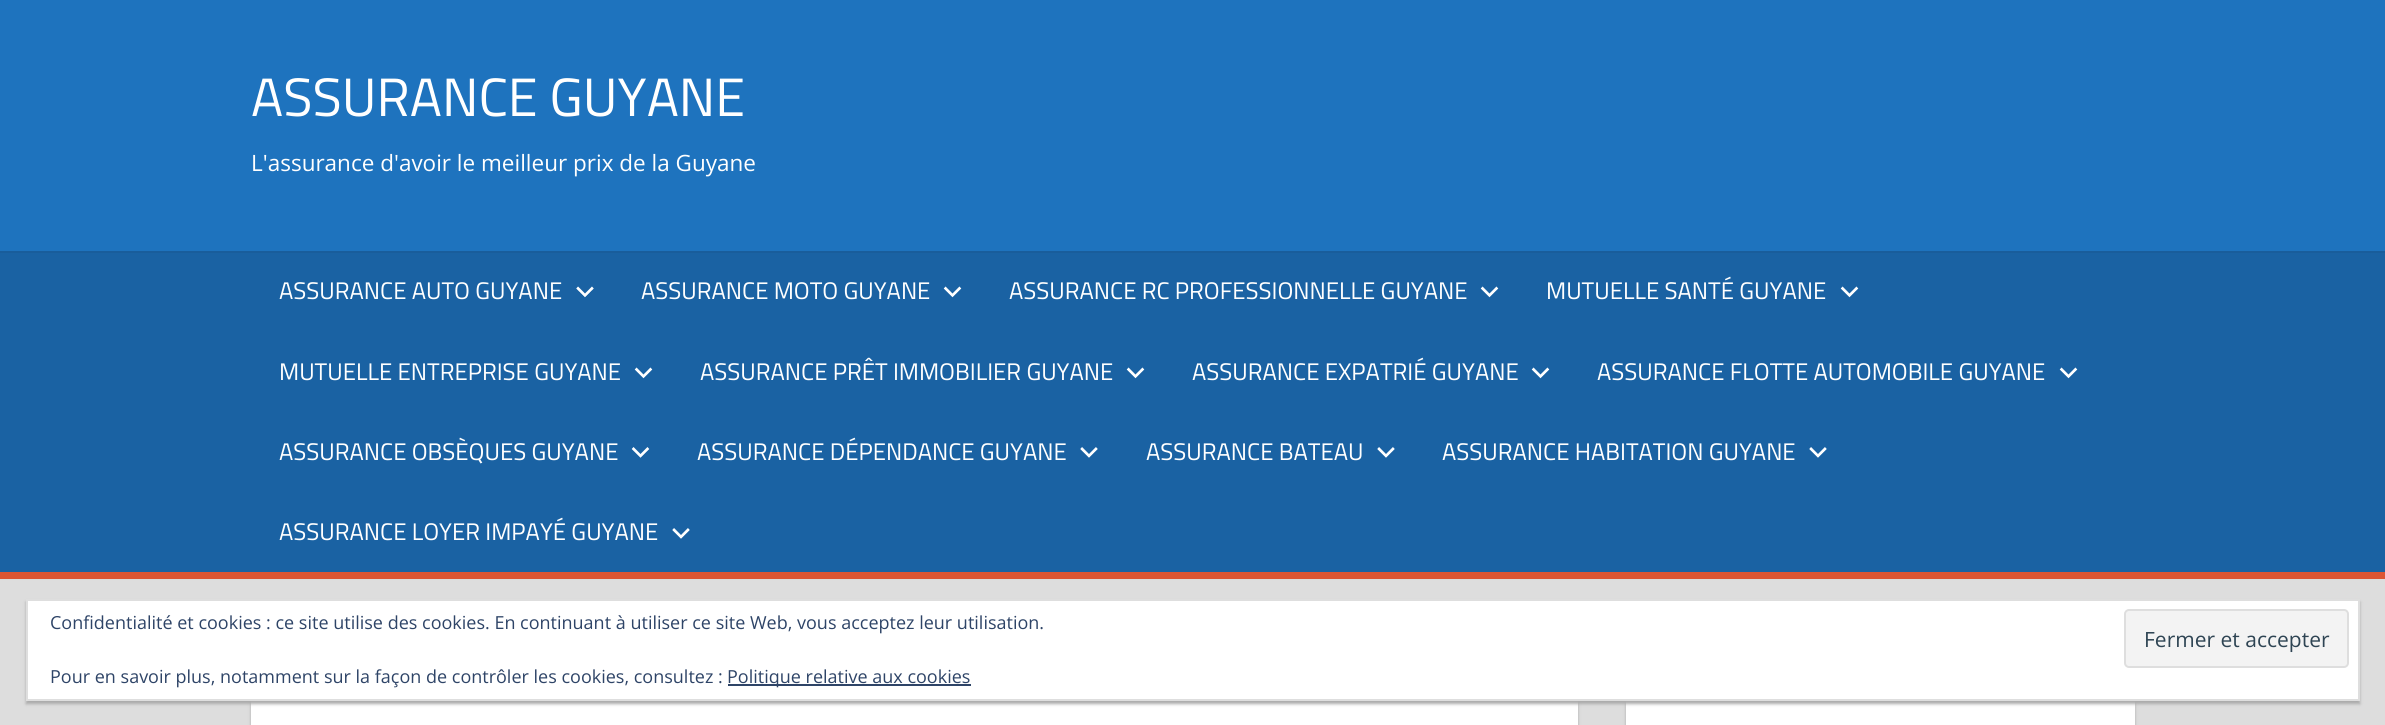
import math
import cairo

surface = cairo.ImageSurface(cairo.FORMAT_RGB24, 2385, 725)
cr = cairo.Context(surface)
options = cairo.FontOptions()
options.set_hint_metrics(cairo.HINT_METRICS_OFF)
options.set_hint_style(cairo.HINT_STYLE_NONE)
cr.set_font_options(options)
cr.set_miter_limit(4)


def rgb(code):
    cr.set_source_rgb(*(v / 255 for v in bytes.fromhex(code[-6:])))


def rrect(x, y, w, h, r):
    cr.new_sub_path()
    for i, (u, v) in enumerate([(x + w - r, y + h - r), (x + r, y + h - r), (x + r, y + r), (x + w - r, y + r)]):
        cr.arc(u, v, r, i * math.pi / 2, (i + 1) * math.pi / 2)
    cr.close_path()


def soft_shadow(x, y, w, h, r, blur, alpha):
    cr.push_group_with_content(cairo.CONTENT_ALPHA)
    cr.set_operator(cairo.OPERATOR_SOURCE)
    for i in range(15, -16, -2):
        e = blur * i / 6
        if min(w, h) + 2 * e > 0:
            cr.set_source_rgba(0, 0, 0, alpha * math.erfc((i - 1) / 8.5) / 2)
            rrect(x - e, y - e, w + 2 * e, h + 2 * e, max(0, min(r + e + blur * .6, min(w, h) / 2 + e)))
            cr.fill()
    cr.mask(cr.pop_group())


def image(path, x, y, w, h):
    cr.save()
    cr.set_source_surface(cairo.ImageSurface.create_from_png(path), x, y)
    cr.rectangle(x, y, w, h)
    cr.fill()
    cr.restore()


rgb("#dddddd")
cr.paint()
for x, y, w, h, color in [
    (0, 0, 2385, 251, "#1e73be"),
    (0, 253, 2385, 319, "#1a62a3"),
    (0, 251, 2385, 2, "#195d9b"),
    (0, 572, 2385, 7, "#dd5533"),
]:
    rgb(color)
    cr.rectangle(x, y, w, h)
    cr.fill()
image("img/1.png", 576, 286, 18, 12)
image("img/2.png", 943, 286, 19, 12)
image("img/2.png", 1480, 286, 19, 12)
image("img/2.png", 1840, 286, 19, 12)
image("img/2.png", 634, 367, 19, 12)
image("img/2.png", 1126, 367, 19, 12)
image("img/2.png", 1531, 367, 19, 12)
image("img/2.png", 2059, 367, 19, 12)
image("img/3.png", 631, 447, 19, 11)
image("img/4.png", 1080, 447, 18, 11)
image("img/4.png", 1377, 447, 18, 11)
image("img/4.png", 1809, 447, 18, 11)
image("img/4.png", 672, 528, 18, 11)
rgb("#aaaaaa")
soft_shadow(251, 630, 1327, 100, 0, 1.5, 1)
rgb("#ffffff")
cr.rectangle(251, 701, 1327, 24)
cr.fill()
rgb("#aaaaaa")
soft_shadow(1626, 630, 509, 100, 0, 1.5, 1)
rgb("#ffffff")
cr.rectangle(1626, 701, 509, 24)
cr.fill()
rgb("#aaaaaa")
soft_shadow(26, 602, 2334, 102, 0, 1.5, 1)
rgb("#ffffff")
cr.rectangle(27, 600, 2332, 100)
cr.fill_preserve()
rgb("#dedede")
cr.stroke()
rgb("#f3f3f3")
rrect(2125, 610, 223, 57, 4)
cr.fill_preserve()
rgb("#dedede")
cr.stroke()
rgb("#2e4467")
cr.rectangle(728, 684, 243, 2)
cr.fill()
cr.select_font_face("Titillium Web")
cr.set_font_size(54)
rgb("#ffffff")
cr.move_to(251, 116)
cr.show_text("ASSURANCE GUYANE")
cr.select_font_face("Open Sans")
cr.set_font_size(22.5)
cr.move_to(251, 171)
cr.show_text("L'assurance d'avoir le meilleur prix de la Guyane")
cr.select_font_face("Titillium Web")
cr.set_font_size(24)
for x, y, s in [
    (279, 299, "ASSURANCE AUTO GUYANE"),
    (641, 299, "ASSURANCE MOTO GUYANE"),
    (1009, 299, "ASSURANCE RC PROFESSIONNELLE GUYANE"),
    (1546, 299, "MUTUELLE SANTÉ GUYANE"),
    (279, 380, "MUTUELLE ENTREPRISE GUYANE"),
    (700, 380, "ASSURANCE PRÊT IMMOBILIER GUYANE"),
    (1192, 380, "ASSURANCE EXPATRIÉ GUYANE"),
    (1597, 380, "ASSURANCE FLOTTE AUTOMOBILE GUYANE"),
    (279, 460, "ASSURANCE OBSÈQUES GUYANE"),
    (697, 460, "ASSURANCE DÉPENDANCE GUYANE"),
    (1146, 460, "ASSURANCE BATEAU"),
    (1442, 460, "ASSURANCE HABITATION GUYANE"),
    (279, 540, "ASSURANCE LOYER IMPAYÉ GUYANE"),
]:
    cr.move_to(x, y)
    cr.show_text(s)
cr.select_font_face("Open Sans")
cr.set_font_size(18)
rgb("#2e4467")
cr.move_to(50, 629)
cr.show_text("Confidentialité et cookies : ce site utilise des cookies. En continuant à utiliser ce site Web, vous acceptez leur utilisation.")
cr.set_font_size(21)
rgb("#2e4453")
cr.move_to(2144, 647)
cr.show_text("Fermer et accepter")
cr.set_font_size(18)
rgb("#2e4467")
cr.move_to(50, 683)
cr.show_text("Pour en savoir plus, notamment sur la façon de contrôler les cookies, consultez :")
cr.move_to(727, 683)
cr.show_text("Politique relative aux cookies")
surface.write_to_png("page.png")
